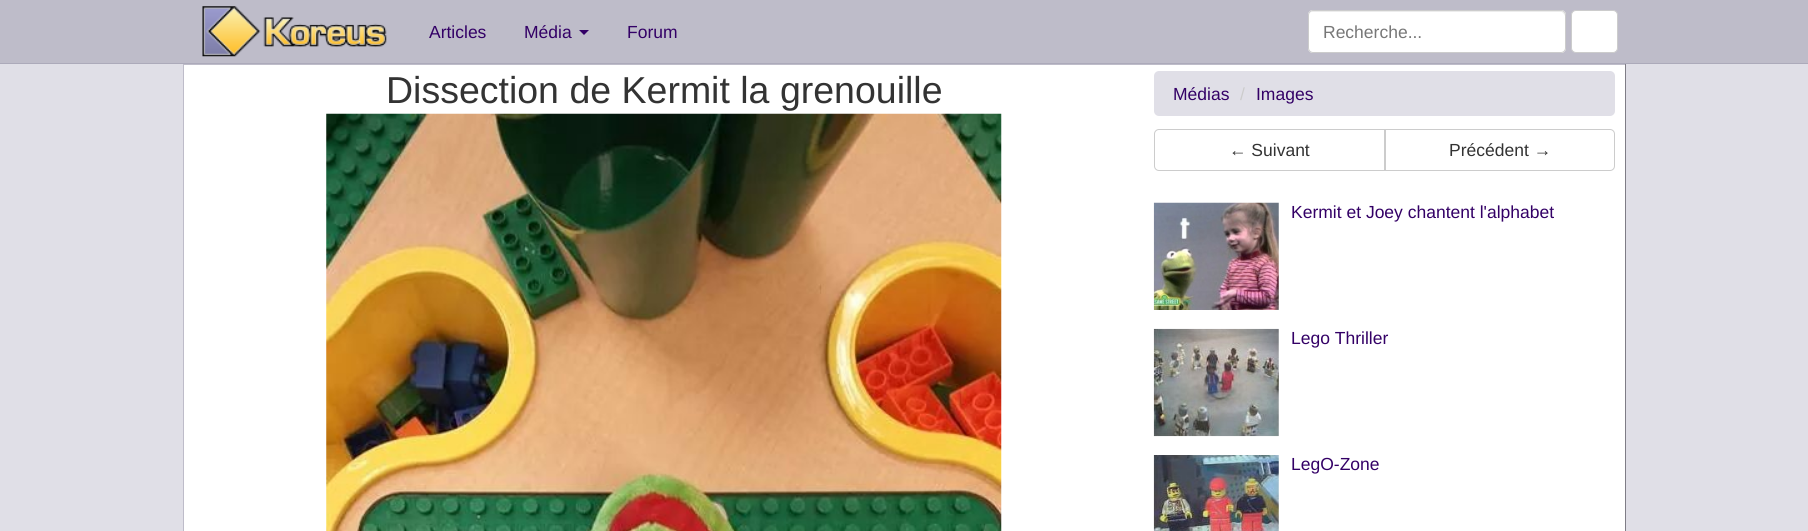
import math
import cairo

surface = cairo.ImageSurface(cairo.FORMAT_RGB24, 1808, 531)
cr = cairo.Context(surface)
options = cairo.FontOptions()
options.set_hint_metrics(cairo.HINT_METRICS_OFF)
options.set_hint_style(cairo.HINT_STYLE_NONE)
cr.set_font_options(options)
cr.set_miter_limit(4)


def rgb(code):
    cr.set_source_rgb(*(v / 255 for v in bytes.fromhex(code[-6:])))


def rrect(x, y, w, h, r):
    cr.new_sub_path()
    for i, (u, v) in enumerate([(x + w - r, y + h - r), (x + r, y + h - r), (x + r, y + r), (x + w - r, y + r)]):
        cr.arc(u, v, r, i * math.pi / 2, (i + 1) * math.pi / 2)
    cr.close_path()


def image(path, x, y, w, h):
    cr.save()
    cr.set_source_surface(cairo.ImageSurface.create_from_png(path), x, y)
    cr.rectangle(x, y, w, h)
    cr.fill()
    cr.restore()


rgb("#e0dfe7")
cr.paint()
rgb("#bebcc9")
cr.rectangle(0, 0, 1808, 63)
cr.fill()
rgb("#acaaba")
cr.rectangle(0, 63, 1808, 1)
cr.fill()
image("img/1.png", 202, 6, 185, 51)
rgb("#330066")
cr.new_path()
cr.move_to(579, 30)
cr.line_to(589, 30)
cr.line_to(584, 35)
cr.close_path()
cr.fill()
rgb("#ffffff")
rrect(1308, 10, 258, 43, 5)
cr.fill()
rgb("#ececec")
cr.new_path()
cr.move_to(1312, 12)
cr.line_to(1562, 12)
cr.line_to(1564, 14)
cr.line_to(1565, 16)
cr.line_to(1565, 15)
cr.curve_to(1565, 13, 1563, 11, 1561, 11)
cr.line_to(1313, 11)
cr.curve_to(1311, 11, 1309, 13, 1309, 15)
cr.line_to(1309, 16)
cr.curve_to(1309, 14, 1310, 12, 1312, 12)
cr.close_path()
cr.fill()
rrect(1308.5, 10.5, 257, 42, 4.5)
rgb("#cccccc")
cr.set_line_width(1)
cr.stroke()
rgb("#ffffff")
rrect(1571.5, 10.5, 46, 42, 4.5)
cr.fill_preserve()
rgb("#cccccc")
cr.stroke()
for x, y, w, h, color in [
    (184, 65, 1441, 466, "#ffffff"),
    (183, 64, 1443, 1, "#bebcc9"),
    (1625, 64, 1, 467, "#7f7d86"),
    (183, 64, 1, 467, "#bebcc9"),
]:
    rgb(color)
    cr.rectangle(x, y, w, h)
    cr.fill()
image("img/2.png", 326, 113, 676, 418)
rgb("#e0dfe7")
rrect(1154, 71, 461, 45, 5)
cr.fill()
cr.new_path()
cr.move_to(1159, 129.5)
cr.line_to(1384.5, 129.5)
cr.line_to(1384.5, 170.5)
cr.line_to(1159, 170.5)
cr.curve_to(1156.5, 170.5, 1154.5, 168.5, 1154.5, 166)
cr.line_to(1154.5, 134)
cr.curve_to(1154.5, 131.5, 1156.5, 129.5, 1159, 129.5)
cr.close_path()
rgb("#cccccc")
cr.stroke()
cr.new_path()
cr.move_to(1385.5, 129.5)
cr.line_to(1610, 129.5)
cr.curve_to(1612.5, 129.5, 1614.5, 131.5, 1614.5, 134)
cr.line_to(1614.5, 166)
cr.curve_to(1614.5, 168.5, 1612.5, 170.5, 1610, 170.5)
cr.line_to(1385.5, 170.5)
cr.close_path()
cr.stroke()
image("img/3.png", 1153, 202, 126, 108)
image("img/4.png", 1153, 328, 126, 109)
image("img/5.png", 1153, 455, 126, 76)
cr.select_font_face("Liberation Sans")
cr.set_font_size(17.5)
rgb("#330066")
for x, y, s in [
    (429, 38, "Articles"),
    (524, 38, "Média"),
    (627, 38, "Forum"),
]:
    cr.move_to(x, y)
    cr.show_text(s)
rgb("#777777")
cr.move_to(1323, 38)
cr.show_text("Recherche...")
cr.set_font_size(37.5)
rgb("#333333")
cr.move_to(386, 103)
cr.show_text("Dissection de Kermit la grenouille")
cr.set_font_size(17.5)
rgb("#330066")
cr.move_to(1173, 100)
cr.show_text("Médias")
rgb("#cccccc")
cr.move_to(1240, 100)
cr.show_text("/")
rgb("#330066")
cr.move_to(1256, 100)
cr.show_text("Images")
rgb("#333333")
cr.move_to(1229, 156)
cr.show_text("← Suivant")
cr.move_to(1449, 156)
cr.show_text("Précédent →")
rgb("#330066")
for x, y, s in [
    (1291, 218, "Kermit et Joey chantent l'alphabet"),
    (1291, 344, "Lego Thriller"),
    (1291, 470, "LegO-Zone"),
]:
    cr.move_to(x, y)
    cr.show_text(s)
surface.write_to_png("page.png")
